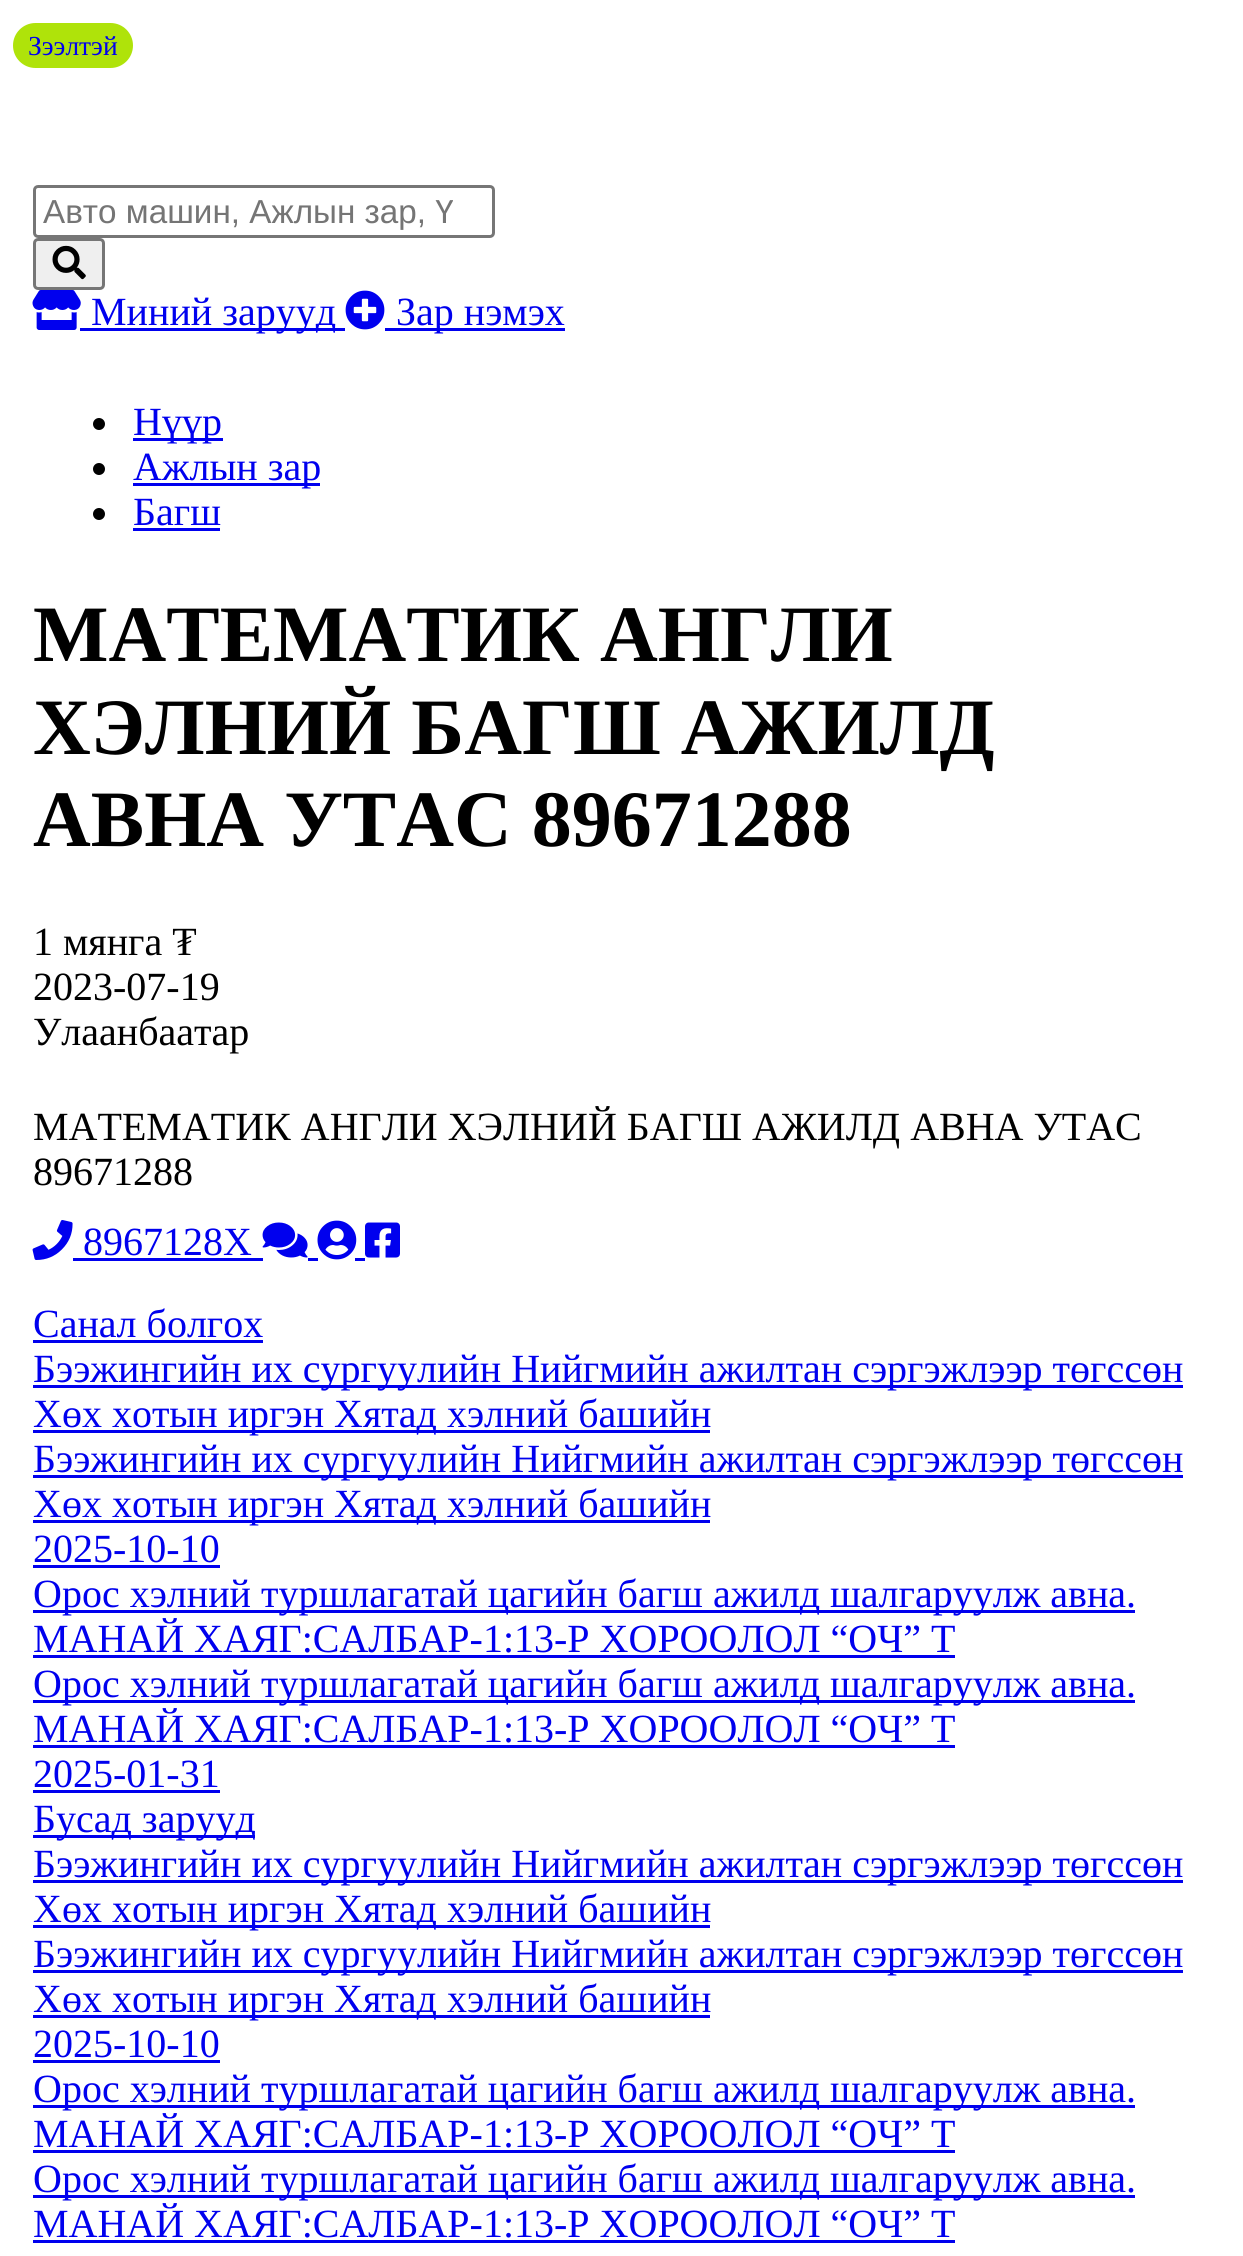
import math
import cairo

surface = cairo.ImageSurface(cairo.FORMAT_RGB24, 1243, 2256)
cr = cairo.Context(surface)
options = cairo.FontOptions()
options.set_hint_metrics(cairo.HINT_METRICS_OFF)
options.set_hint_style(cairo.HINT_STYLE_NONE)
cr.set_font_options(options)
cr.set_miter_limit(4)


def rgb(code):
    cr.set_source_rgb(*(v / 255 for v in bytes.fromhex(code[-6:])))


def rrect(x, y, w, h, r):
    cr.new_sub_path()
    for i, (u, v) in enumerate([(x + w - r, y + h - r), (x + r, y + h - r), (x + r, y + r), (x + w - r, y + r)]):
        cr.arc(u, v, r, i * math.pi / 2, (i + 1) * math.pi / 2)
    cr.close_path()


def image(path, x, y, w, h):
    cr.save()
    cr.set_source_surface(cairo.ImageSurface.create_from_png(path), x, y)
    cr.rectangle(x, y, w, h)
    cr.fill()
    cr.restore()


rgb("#ffffff")
cr.paint()
rgb("#afe30a")
rrect(13, 23, 120, 45, 22.5)
cr.fill()
for x, y, w, h, color in [
    (33, 1880, 1150, 3, "#0000ee"),
    (33, 1925, 677, 3, "#0000ee"),
    (33, 1970, 1150, 3, "#0000ee"),
    (33, 2015, 677, 3, "#0000ee"),
    (33, 2060, 187, 3, "#0000ee"),
    (33, 2105, 1102, 3, "#0000ee"),
    (33, 2150, 922, 3, "#0000ee"),
    (33, 2195, 1102, 3, "#0000ee"),
    (33, 2240, 922, 3, "#0000ee"),
    (33, 1835, 222, 3, "#0000ee"),
]:
    rgb(color)
    cr.rectangle(x, y, w, h)
    cr.fill()
rgb("#000000")
cr.arc(99, 424, 6, 0, 2 * math.pi)
cr.fill()
rgb("#0000ee")
cr.rectangle(133, 438, 90, 3)
cr.fill()
rgb("#000000")
cr.arc(99, 469, 6, 0, 2 * math.pi)
cr.fill()
rgb("#0000ee")
cr.rectangle(133, 483, 187, 3)
cr.fill()
rgb("#000000")
cr.arc(99, 514, 6, 0, 2 * math.pi)
cr.fill()
rgb("#0000ee")
cr.rectangle(133, 528, 87, 3)
cr.fill()
image("img/1.png", 32, 1220, 41, 40)
cr.rectangle(73, 1258, 190, 3)
cr.fill()
image("img/2.png", 262, 1222, 46, 36)
cr.rectangle(308, 1258, 10, 3)
cr.fill()
image("img/3.png", 317, 1220, 40, 40)
cr.rectangle(355, 1258, 10, 3)
cr.fill()
image("img/4.png", 365, 1222, 35, 36)
for x, y, w, h, color in [
    (33, 1340, 230, 3, "#0000ee"),
    (33, 1385, 1150, 3, "#0000ee"),
    (33, 1430, 677, 3, "#0000ee"),
    (33, 1475, 1150, 3, "#0000ee"),
    (33, 1520, 677, 3, "#0000ee"),
    (33, 1565, 187, 3, "#0000ee"),
    (33, 1610, 1102, 3, "#0000ee"),
    (33, 1655, 922, 3, "#0000ee"),
    (33, 1700, 1102, 3, "#0000ee"),
    (33, 1745, 922, 3, "#0000ee"),
    (33, 1790, 187, 3, "#0000ee"),
]:
    rgb(color)
    cr.rectangle(x, y, w, h)
    cr.fill()
rrect(34.5, 186.5, 459, 50, 3.5)
rgb("#767676")
cr.set_line_width(3)
cr.stroke()
rgb("#efefef")
rrect(34.5, 239.5, 69, 49, 3.5)
cr.fill_preserve()
rgb("#767676")
cr.stroke()
image("img/5.png", 52, 245, 34, 35)
image("img/6.png", 32, 290, 49, 40)
rgb("#0000ee")
cr.rectangle(80, 328, 265, 3)
cr.fill()
image("img/7.png", 345, 290, 40, 40)
cr.rectangle(385, 328, 180, 3)
cr.fill()
cr.select_font_face("Liberation Serif")
cr.set_font_size(27.5)
cr.move_to(28, 55)
cr.show_text("Зээлтэй")
cr.set_font_size(40)
for x, y, s in [
    (33, 1877, "Бээжингийн их сургуулийн Нийгмийн ажилтан сэргэжлээр төгссөн"),
    (33, 1922, "Хөх хотын иргэн Хятад хэлний башийн"),
    (33, 1967, "Бээжингийн их сургуулийн Нийгмийн ажилтан сэргэжлээр төгссөн"),
    (33, 2012, "Хөх хотын иргэн Хятад хэлний башийн"),
    (33, 2057, "2025-10-10"),
    (33, 2102, "Орос хэлний туршлагатай цагийн багш ажилд шалгаруулж авна."),
    (33, 2147, "МАНАЙ ХАЯГ:САЛБАР-1:13-Р ХОРООЛОЛ “ОЧ” Т"),
    (33, 2192, "Орос хэлний туршлагатай цагийн багш ажилд шалгаруулж авна."),
    (33, 2237, "МАНАЙ ХАЯГ:САЛБАР-1:13-Р ХОРООЛОЛ “ОЧ” Т"),
    (33, 1832, "Бусад зарууд"),
    (133, 435, "Нүүр"),
    (133, 480, "Ажлын зар"),
    (133, 525, "Багш"),
]:
    cr.move_to(x, y)
    cr.show_text(s)
cr.select_font_face("Liberation Serif", cairo.FONT_SLANT_NORMAL, cairo.FONT_WEIGHT_BOLD)
cr.set_font_size(80)
rgb("#000000")
for x, y, s in [
    (33, 661, "МАТЕМАТИК АНГЛИ"),
    (33, 754, "ХЭЛНИЙ БАГШ АЖИЛД"),
    (33, 846, "АВНА УТАС 89671288"),
]:
    cr.move_to(x, y)
    cr.show_text(s)
cr.select_font_face("Liberation Serif")
cr.set_font_size(40)
for x, y, s in [
    (33, 955, "1 мянга ₮"),
    (33, 1000, "2023-07-19"),
    (33, 1045, "Улаанбаатар"),
    (33, 1140, "МАТЕМАТИК АНГЛИ ХЭЛНИЙ БАГШ АЖИЛД АВНА УТАС"),
    (33, 1185, "89671288"),
]:
    cr.move_to(x, y)
    cr.show_text(s)
rgb("#0000ee")
for x, y, s in [
    (83, 1255, "8967128X"),
    (33, 1337, "Санал болгох"),
    (33, 1382, "Бээжингийн их сургуулийн Нийгмийн ажилтан сэргэжлээр төгссөн"),
    (33, 1427, "Хөх хотын иргэн Хятад хэлний башийн"),
    (33, 1472, "Бээжингийн их сургуулийн Нийгмийн ажилтан сэргэжлээр төгссөн"),
    (33, 1517, "Хөх хотын иргэн Хятад хэлний башийн"),
    (33, 1562, "2025-10-10"),
    (33, 1607, "Орос хэлний туршлагатай цагийн багш ажилд шалгаруулж авна."),
    (33, 1652, "МАНАЙ ХАЯГ:САЛБАР-1:13-Р ХОРООЛОЛ “ОЧ” Т"),
    (33, 1697, "Орос хэлний туршлагатай цагийн багш ажилд шалгаруулж авна."),
    (33, 1742, "МАНАЙ ХАЯГ:САЛБАР-1:13-Р ХОРООЛОЛ “ОЧ” Т"),
    (33, 1787, "2025-01-31"),
]:
    cr.move_to(x, y)
    cr.show_text(s)
cr.save()
cr.rectangle(43, 193, 410, 37)
cr.clip()
cr.select_font_face("Liberation Sans")
cr.set_font_size(33.25)
rgb("#757575")
cr.move_to(43, 223)
cr.show_text("Авто машин, Ажлын зар, Ү")
cr.restore()
cr.move_to(91, 325)
cr.show_text("Миний зарууд")
cr.move_to(396, 325)
cr.show_text("Зар нэмэх")
surface.write_to_png("page.png")
